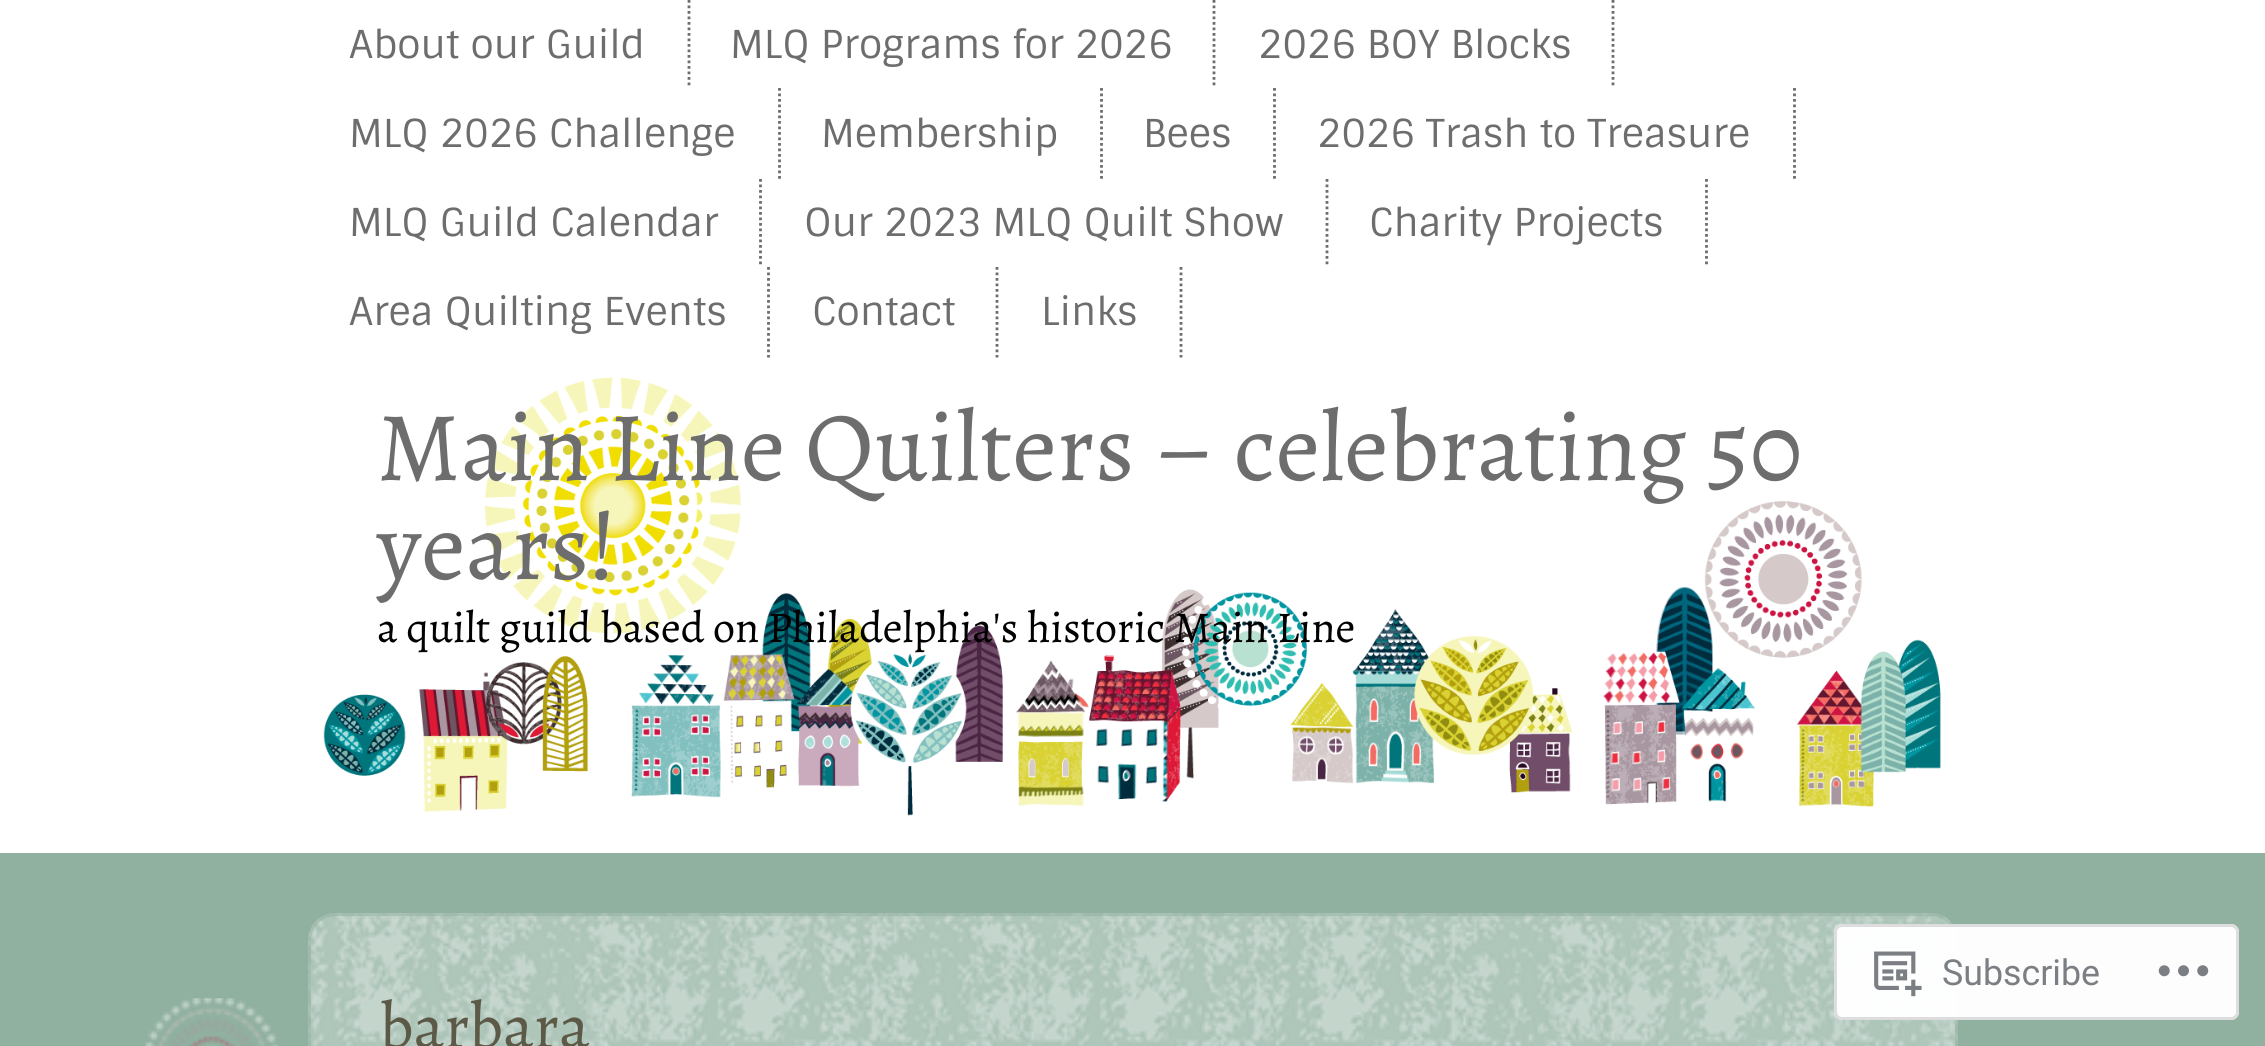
import math
import cairo

surface = cairo.ImageSurface(cairo.FORMAT_RGB24, 2265, 1046)
cr = cairo.Context(surface)
options = cairo.FontOptions()
options.set_hint_metrics(cairo.HINT_METRICS_OFF)
options.set_hint_style(cairo.HINT_STYLE_NONE)
cr.set_font_options(options)
cr.set_miter_limit(4)


def rgb(code):
    cr.set_source_rgb(*(v / 255 for v in bytes.fromhex(code[-6:])))


def rrect(x, y, w, h, r):
    cr.new_sub_path()
    for i, (u, v) in enumerate([(x + w - r, y + h - r), (x + r, y + h - r), (x + r, y + r), (x + w - r, y + r)]):
        cr.arc(u, v, r, i * math.pi / 2, (i + 1) * math.pi / 2)
    cr.close_path()


def image(path, x, y, w, h):
    cr.save()
    cr.set_source_surface(cairo.ImageSurface.create_from_png(path), x, y)
    cr.rectangle(x, y, w, h)
    cr.fill()
    cr.restore()


rgb("#90b0a0")
cr.paint()
rgb("#ffffff")
cr.rectangle(0, 0, 2265, 853)
cr.fill()
cr.new_path()
cr.move_to(689, 0)
cr.line_to(689, 88)
rgb("#6d6d6d")
cr.set_line_width(2.8)
cr.set_dash([2.75, 2.75])
cr.stroke()
cr.new_path()
cr.move_to(1214, 0)
cr.line_to(1214, 88)
cr.stroke()
cr.new_path()
cr.move_to(1613, 0)
cr.line_to(1613, 88)
cr.stroke()
cr.new_path()
cr.move_to(779.5, 88)
cr.line_to(779.5, 179)
cr.stroke()
cr.new_path()
cr.move_to(1101.5, 88)
cr.line_to(1101.5, 179)
cr.stroke()
cr.new_path()
cr.move_to(1274.5, 88)
cr.line_to(1274.5, 179)
cr.stroke()
cr.new_path()
cr.move_to(1794.5, 88)
cr.line_to(1794.5, 179)
cr.stroke()
cr.new_path()
cr.move_to(760.5, 179)
cr.line_to(760.5, 267)
cr.stroke()
cr.new_path()
cr.move_to(1327, 179)
cr.line_to(1327, 267)
cr.stroke()
cr.new_path()
cr.move_to(1706.5, 179)
cr.line_to(1706.5, 267)
cr.stroke()
cr.new_path()
cr.move_to(768.5, 267)
cr.line_to(768.5, 357.5)
cr.stroke()
cr.new_path()
cr.move_to(997, 267)
cr.line_to(997, 357.5)
cr.stroke()
cr.new_path()
cr.move_to(1181, 267)
cr.line_to(1181, 357.5)
cr.stroke()
image("img/1.png", 323, 377, 1618, 439)
image("img/2.png", 308, 913, 1650, 133)
rrect(309.5, 914.5, 1647, 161, 26.5)
cr.set_source_rgba(0.565, 0.69, 0.627, 0.5)
cr.set_line_width(3)
cr.set_dash([])
cr.stroke()
image("img/3.png", 145, 998, 133, 48)
cr.set_source_rgba(1, 1, 1, 0.98)
rrect(1834, 924, 405, 96, 8)
cr.fill()
rrect(1835.5, 925.5, 402, 93, 6.5)
cr.set_source_rgba(0.863, 0.863, 0.871, 0.98)
cr.stroke()
image("img/4.png", 1874, 951, 48, 46)
image("img/5.png", 2158, 965, 51, 12)
cr.select_font_face("Sintony")
cr.set_font_size(38.5)
rgb("#6d6d6d")
for x, y, s in [
    (349, 58, "About our Guild"),
    (730, 58, "MLQ Programs for 2026"),
    (1258, 58, "2026 BOY Blocks"),
    (349, 147, "MLQ 2026 Challenge"),
    (821, 147, "Membership"),
    (1143, 147, "Bees"),
    (1317, 147, "2026 Trash to Treasure"),
    (349, 236, "MLQ Guild Calendar"),
    (804, 236, "Our 2023 MLQ Quilt Show"),
    (1369, 236, "Charity Projects"),
    (349, 325, "Area Quilting Events"),
    (812, 325, "Contact"),
    (1041, 325, "Links"),
]:
    cr.move_to(x, y)
    cr.show_text(s)
cr.select_font_face("Alegreya")
cr.set_font_size(99)
cr.move_to(377, 480)
cr.show_text("Main Line Quilters – celebrating 50")
cr.move_to(377, 579)
cr.show_text("years!")
cr.set_font_size(44)
rgb("#000000")
cr.move_to(377, 642)
cr.show_text("a quilt guild based on Philadelphia's historic Main Line")
cr.set_font_size(66)
rgb("#5c5a46")
cr.move_to(380, 1048)
cr.show_text("barbara")
cr.select_font_face("Roboto")
cr.set_font_size(35.75)
rgb("#7b7f84")
cr.move_to(1942, 985)
cr.show_text("Subscribe")
surface.write_to_png("page.png")
